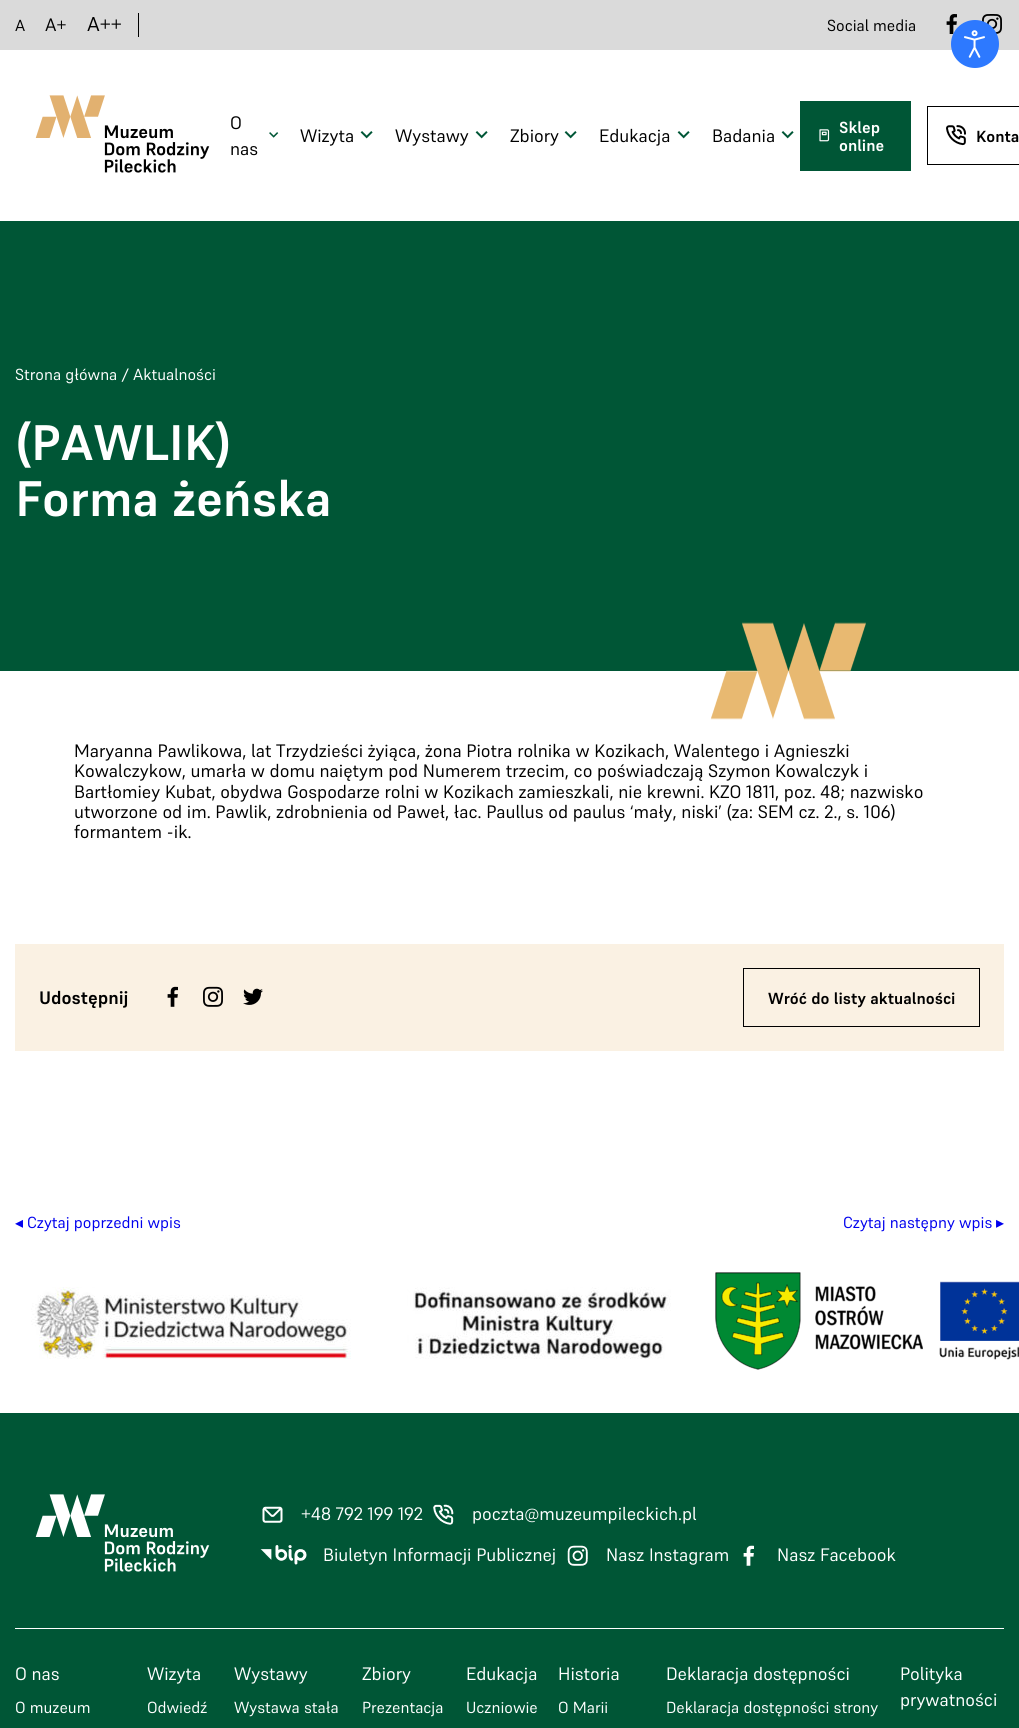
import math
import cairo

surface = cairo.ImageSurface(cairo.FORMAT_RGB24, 1019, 1728)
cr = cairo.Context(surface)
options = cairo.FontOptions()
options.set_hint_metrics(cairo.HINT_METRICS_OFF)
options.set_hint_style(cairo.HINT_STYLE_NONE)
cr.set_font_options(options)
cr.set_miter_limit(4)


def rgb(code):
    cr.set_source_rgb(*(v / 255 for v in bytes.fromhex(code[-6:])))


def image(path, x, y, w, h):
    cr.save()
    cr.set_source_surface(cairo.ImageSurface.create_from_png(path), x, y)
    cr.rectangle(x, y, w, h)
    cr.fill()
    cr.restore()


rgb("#ffffff")
cr.paint()
rgb("#dadada")
cr.rectangle(0, 0, 1019, 50)
cr.fill()
rgb("#000000")
cr.rectangle(138, 13, 1, 24)
cr.fill()
image("img/1.png", 946, 14, 11, 20)
image("img/2.png", 982, 14, 20, 20)
rgb("#2d79ff")
cr.arc(975, 44, 24, 0, 2 * math.pi)
cr.fill()
image("img/3.png", 964, 30, 21, 28)
image("img/4.png", 35, 95, 175, 78)
image("img/5.png", 269, 132, 10, 6)
image("img/6.png", 360, 131, 13, 8)
image("img/6.png", 475, 131, 13, 8)
image("img/6.png", 564, 131, 13, 8)
image("img/6.png", 677, 131, 13, 8)
image("img/6.png", 781, 131, 13, 8)
rgb("#005636")
cr.rectangle(800, 101, 111, 70)
cr.fill()
image("img/7.png", 819, 129, 11, 13)
cr.rectangle(927.5, 106.5, 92, 58)
rgb("#000000")
cr.set_line_width(1)
cr.stroke()
image("img/8.png", 946, 125, 20, 21)
rgb("#005636")
cr.rectangle(0, 221, 1019, 450)
cr.fill()
image("img/9.png", 710, 622, 156, 98)
rgb("#faf1e3")
cr.rectangle(15, 944, 989, 107)
cr.fill()
image("img/10.png", 167, 986, 11, 21)
image("img/11.png", 203, 986, 20, 21)
image("img/12.png", 243, 988, 20, 17)
cr.rectangle(743.5, 968.5, 236, 58)
rgb("#000000")
cr.stroke()
image("img/13.png", 31, 1287, 640, 72)
image("img/14.png", 715, 1272, 208, 98)
image("img/15.png", 939, 1281, 80, 79)
rgb("#005636")
cr.rectangle(0, 1413, 1019, 315)
cr.fill()
rgb("#ffffff")
cr.rectangle(15, 1628, 989, 1)
cr.fill()
image("img/16.png", 35, 1494, 175, 78)
image("img/17.png", 262, 1506, 21, 17)
image("img/18.png", 433, 1504, 21, 21)
image("img/19.png", 260, 1545, 47, 20)
image("img/20.png", 567, 1545, 21, 21)
image("img/21.png", 743, 1545, 11, 21)
cr.select_font_face("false")
cr.set_font_size(16)
rgb("#000000")
cr.move_to(15, 31)
cr.show_text("A")
cr.set_font_size(18)
cr.move_to(45, 31)
cr.show_text("A+")
cr.set_font_size(20)
cr.move_to(87, 31)
cr.show_text("A++")
cr.set_font_size(16)
cr.move_to(827, 31)
cr.show_text("Social media")
cr.set_font_size(18)
for x, y, s in [
    (230, 129, "O"),
    (230, 155, "nas"),
    (300, 142, "Wizyta"),
    (395, 142, "Wystawy"),
    (510, 142, "Zbiory"),
    (599, 142, "Edukacja"),
    (712, 142, "Badania"),
]:
    cr.move_to(x, y)
    cr.show_text(s)
cr.select_font_face("false", cairo.FONT_SLANT_NORMAL, cairo.FONT_WEIGHT_BOLD)
cr.set_font_size(16)
rgb("#ffffff")
cr.move_to(839, 133)
cr.show_text("Sklep")
cr.move_to(839, 151)
cr.show_text("online")
rgb("#000000")
cr.move_to(976, 142)
cr.show_text("Konta")
cr.select_font_face("false")
rgb("#ffffff")
cr.move_to(15, 380)
cr.show_text("Strona główna / Aktualności")
cr.select_font_face("false", cairo.FONT_SLANT_NORMAL, cairo.FONT_WEIGHT_BOLD)
cr.set_font_size(49.75)
cr.move_to(15, 460)
cr.show_text("(PAWLIK)")
cr.move_to(15, 516)
cr.show_text("Forma żeńska")
cr.select_font_face("false")
cr.set_font_size(18)
rgb("#000000")
for x, y, s in [
    (74, 757, "Maryanna Pawlikowa, lat Trzydzieści żyiąca, żona Piotra rolnika w Kozikach, Walentego i Agnieszki"),
    (74, 777, "Kowalczykow, umarła w domu naiętym pod Numerem trzecim, co poświadczają Szymon Kowalczyk i"),
    (74, 798, "Bartłomiey Kubat, obydwa Gospodarze rolni w Kozikach zamieszkali, nie krewni. KZO 1811, poz. 48; nazwisko"),
    (74, 818, "utworzone od im. Pawlik, zdrobnienia od Paweł, łac. Paullus od paulus ‘mały, niski’ (za: SEM cz. 2., s. 106)"),
    (74, 838, "formantem -ik."),
]:
    cr.move_to(x, y)
    cr.show_text(s)
cr.select_font_face("false", cairo.FONT_SLANT_NORMAL, cairo.FONT_WEIGHT_BOLD)
cr.move_to(39, 1004)
cr.show_text("Udostępnij")
cr.set_font_size(16)
cr.move_to(768, 1004)
cr.show_text("Wróć do listy aktualności")
cr.select_font_face("DejaVu Sans")
rgb("#0000ee")
cr.move_to(15, 1228)
cr.show_text("◂")
cr.select_font_face("false")
cr.move_to(27, 1228)
cr.show_text("Czytaj poprzedni wpis")
cr.move_to(843, 1228)
cr.show_text("Czytaj następny wpis")
cr.select_font_face("DejaVu Sans")
cr.move_to(996, 1228)
cr.show_text("▸")
cr.select_font_face("false")
cr.set_font_size(18)
rgb("#ffffff")
for x, y, s in [
    (301, 1520, "+48 792 199 192"),
    (472, 1520, "poczta@muzeumpileckich.pl"),
    (323, 1561, "Biuletyn Informacji Publicznej"),
    (606, 1561, "Nasz Instagram"),
    (777, 1561, "Nasz Facebook"),
    (15, 1680, "O nas"),
]:
    cr.move_to(x, y)
    cr.show_text(s)
cr.set_font_size(16)
cr.move_to(15, 1713)
cr.show_text("O muzeum")
cr.set_font_size(18)
cr.move_to(147, 1680)
cr.show_text("Wizyta")
cr.set_font_size(16)
cr.move_to(147, 1713)
cr.show_text("Odwiedź")
cr.set_font_size(18)
cr.move_to(234, 1680)
cr.show_text("Wystawy")
cr.set_font_size(16)
cr.move_to(234, 1713)
cr.show_text("Wystawa stała")
cr.set_font_size(18)
cr.move_to(362, 1680)
cr.show_text("Zbiory")
cr.set_font_size(16)
cr.move_to(362, 1713)
cr.show_text("Prezentacja")
cr.set_font_size(18)
cr.move_to(466, 1680)
cr.show_text("Edukacja")
cr.set_font_size(16)
cr.move_to(466, 1713)
cr.show_text("Uczniowie")
cr.set_font_size(18)
cr.move_to(558, 1680)
cr.show_text("Historia")
cr.set_font_size(16)
cr.move_to(558, 1713)
cr.show_text("O Marii")
cr.set_font_size(18)
cr.move_to(666, 1680)
cr.show_text("Deklaracja dostępności")
cr.set_font_size(16)
cr.move_to(666, 1713)
cr.show_text("Deklaracja dostępności strony")
cr.set_font_size(18)
cr.move_to(900, 1680)
cr.show_text("Polityka")
cr.move_to(900, 1706)
cr.show_text("prywatności")
surface.write_to_png("page.png")
